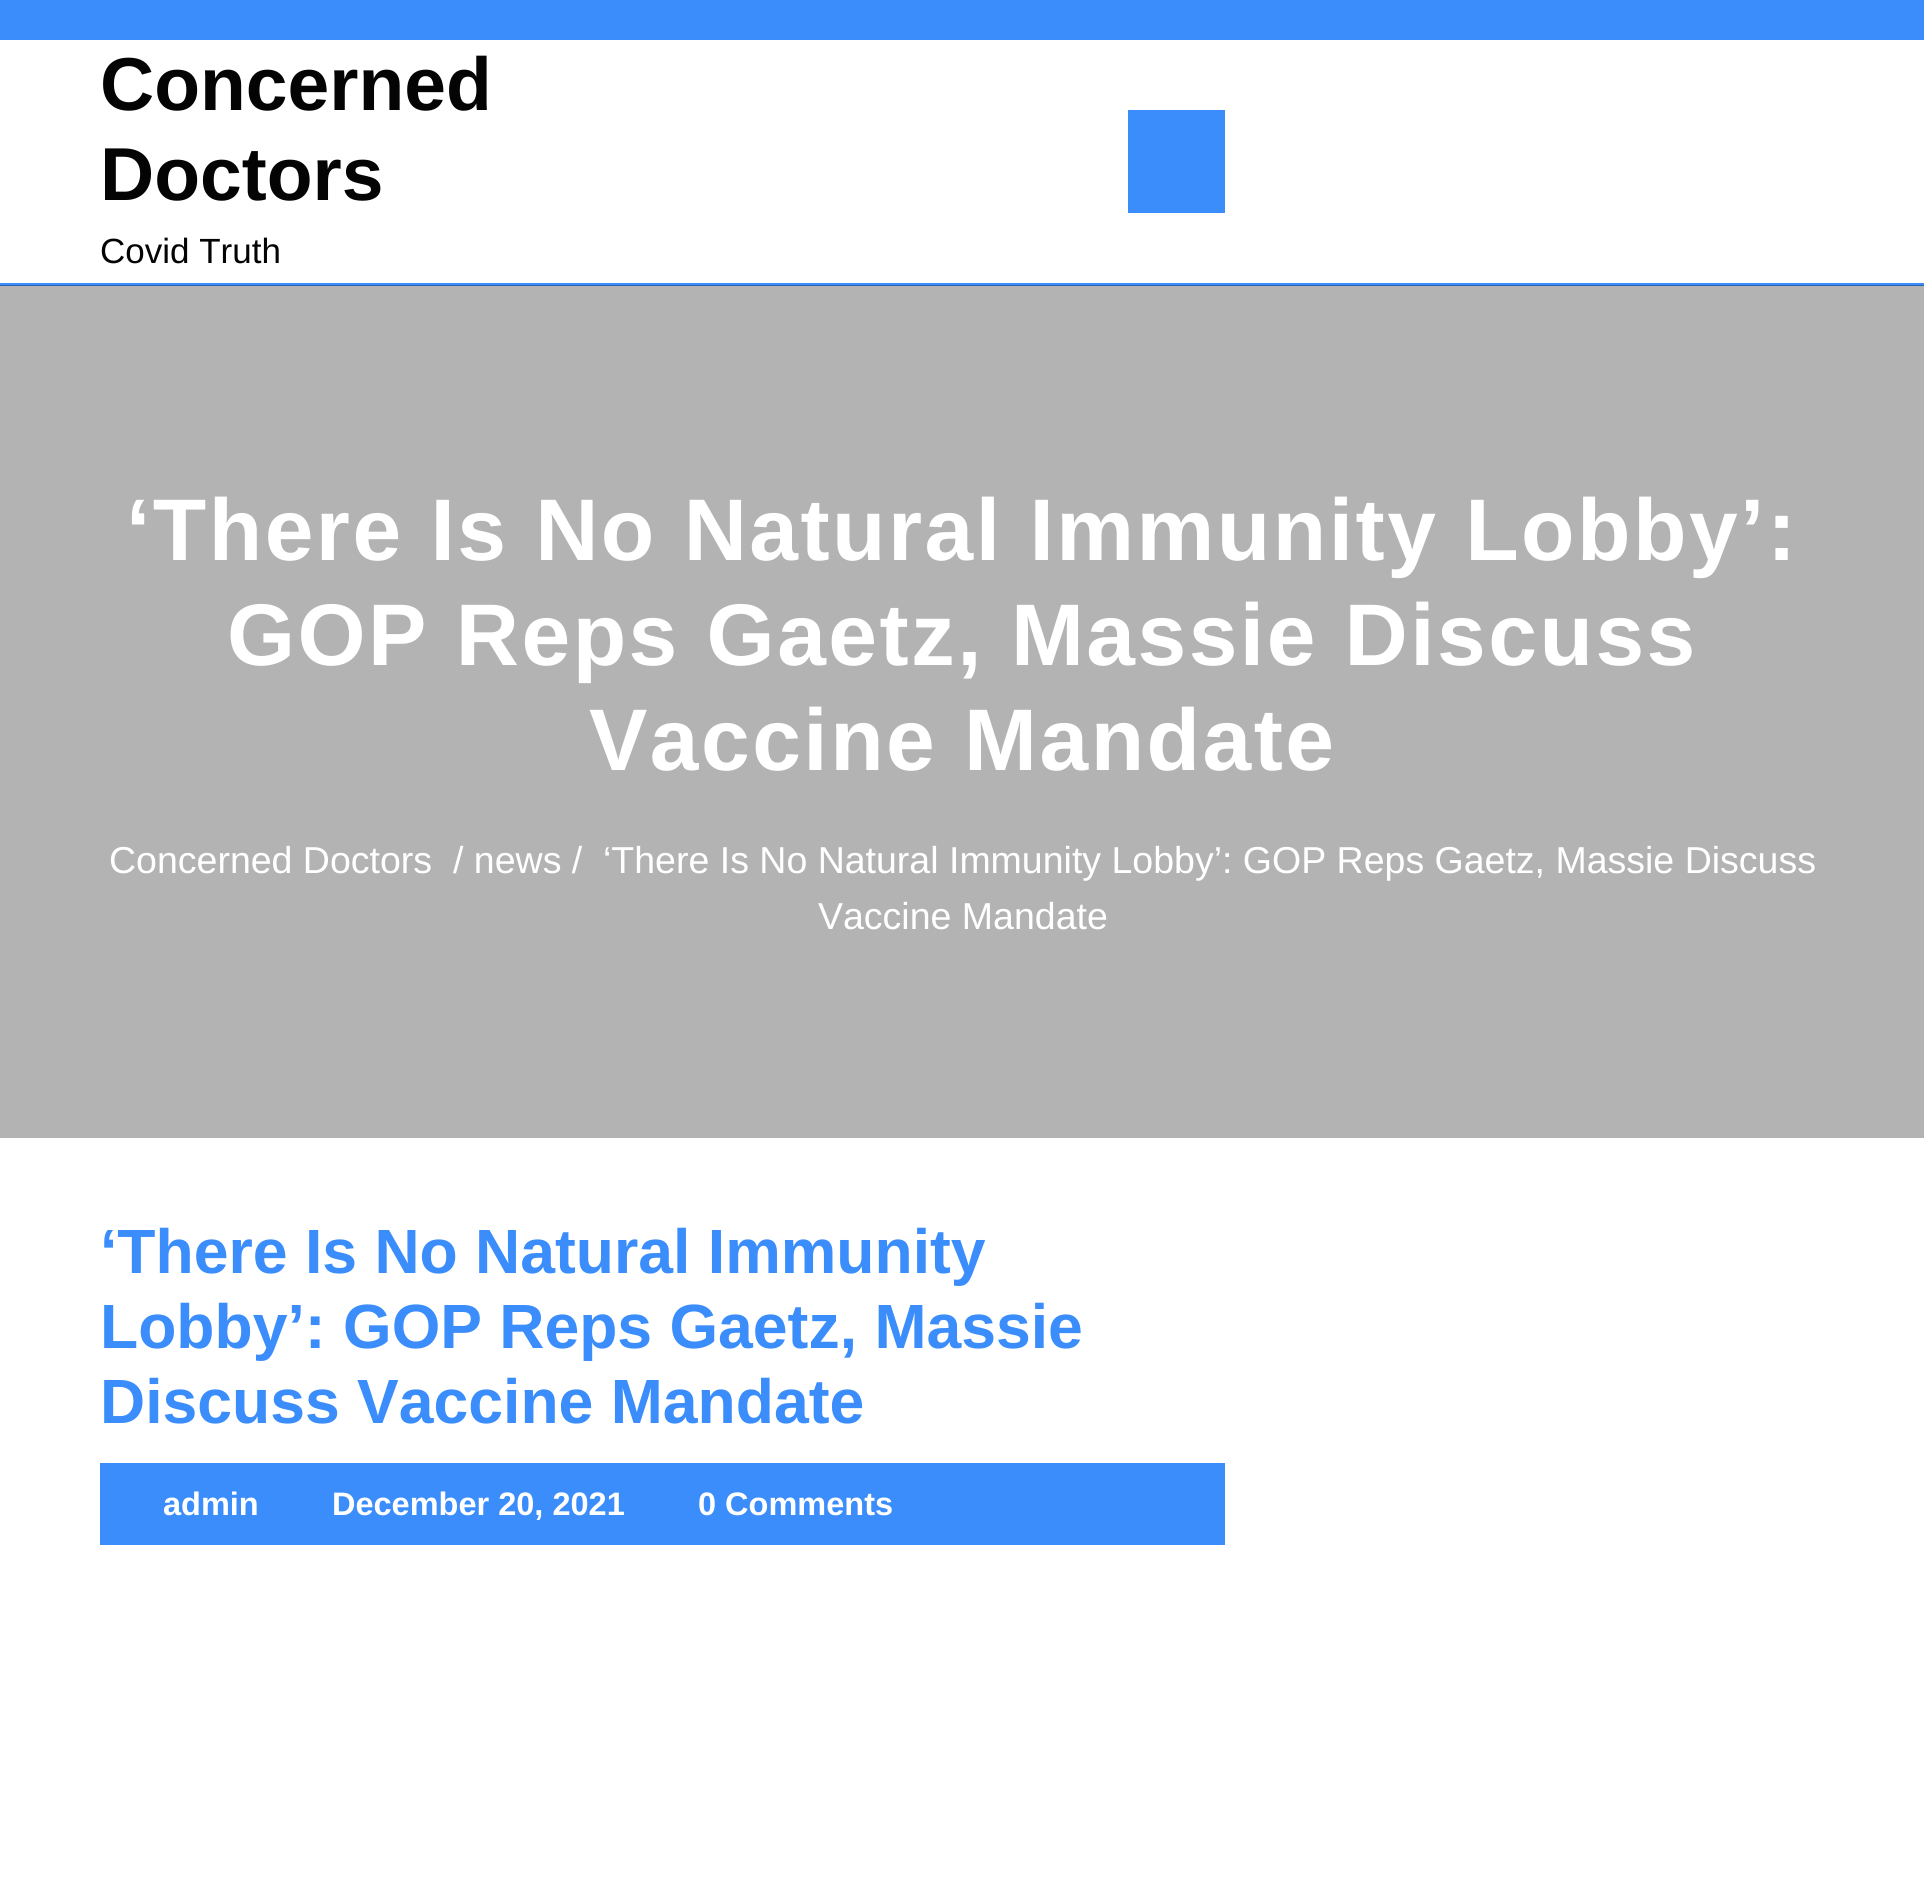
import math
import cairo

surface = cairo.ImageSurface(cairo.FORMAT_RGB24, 1924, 1889)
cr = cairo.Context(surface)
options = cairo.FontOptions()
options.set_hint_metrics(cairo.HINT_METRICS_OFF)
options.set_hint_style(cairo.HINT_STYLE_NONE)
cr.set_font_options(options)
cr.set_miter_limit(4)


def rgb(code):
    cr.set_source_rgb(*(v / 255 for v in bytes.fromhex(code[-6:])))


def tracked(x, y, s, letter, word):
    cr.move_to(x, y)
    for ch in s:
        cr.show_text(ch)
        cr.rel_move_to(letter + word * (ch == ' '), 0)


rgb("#ffffff")
cr.paint()
for x, y, w, h, color in [
    (0, 286, 1924, 852, "#b3b3b3"),
    (0, 0, 1924, 40, "#3a8dfa"),
    (0, 283, 1924, 2, "#3a8dfa"),
    (0, 285, 1924, 1, "#2963af"),
    (1128, 110, 97, 103, "#3a8dfa"),
    (100, 1463, 1125, 82, "#3a8dfa"),
]:
    rgb(color)
    cr.rectangle(x, y, w, h)
    cr.fill()
cr.select_font_face("Liberation Sans", cairo.FONT_SLANT_NORMAL, cairo.FONT_WEIGHT_BOLD)
cr.set_font_size(75)
rgb("#040404")
cr.move_to(100, 110)
cr.show_text("Concerned")
cr.move_to(100, 200)
cr.show_text("Doctors")
cr.select_font_face("Liberation Sans")
cr.set_font_size(35)
cr.move_to(100, 263)
cr.show_text("Covid Truth")
cr.select_font_face("Liberation Sans", cairo.FONT_SLANT_NORMAL, cairo.FONT_WEIGHT_BOLD)
cr.set_font_size(87.5)
rgb("#ffffff")
for x, y, s in [
    (126, 560, "‘There Is No Natural Immunity Lobby’:"),
    (227, 665, "GOP Reps Gaetz, Massie Discuss"),
    (589, 770, "Vaccine Mandate"),
]:
    tracked(x, y, s, 2.5, 0)
cr.select_font_face("Liberation Sans")
cr.set_font_size(37.5)
for x, y, s in [
    (109, 873, "Concerned Doctors"),
    (453, 873, "/ news /"),
    (603, 873, "‘There Is No Natural Immunity Lobby’: GOP Reps Gaetz, Massie Discuss"),
    (818, 929, "Vaccine Mandate"),
]:
    cr.move_to(x, y)
    cr.show_text(s)
cr.select_font_face("Liberation Sans", cairo.FONT_SLANT_NORMAL, cairo.FONT_WEIGHT_BOLD)
cr.set_font_size(62.5)
rgb("#3a8dfa")
for x, y, s in [
    (100, 1273, "‘There Is No Natural Immunity"),
    (100, 1348, "Lobby’: GOP Reps Gaetz, Massie"),
    (100, 1423, "Discuss Vaccine Mandate"),
]:
    cr.move_to(x, y)
    cr.show_text(s)
cr.set_font_size(32.5)
rgb("#ffffff")
for x, y, s in [
    (163, 1515, "admin"),
    (332, 1515, "December 20, 2021"),
    (698, 1515, "0 Comments"),
]:
    cr.move_to(x, y)
    cr.show_text(s)
surface.write_to_png("page.png")
